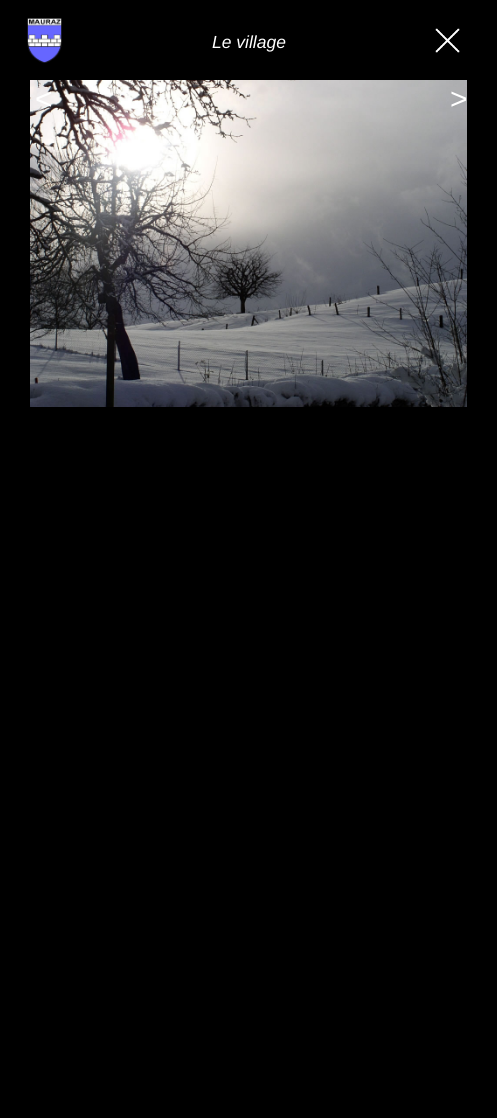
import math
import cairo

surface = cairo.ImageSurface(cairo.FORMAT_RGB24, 497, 1118)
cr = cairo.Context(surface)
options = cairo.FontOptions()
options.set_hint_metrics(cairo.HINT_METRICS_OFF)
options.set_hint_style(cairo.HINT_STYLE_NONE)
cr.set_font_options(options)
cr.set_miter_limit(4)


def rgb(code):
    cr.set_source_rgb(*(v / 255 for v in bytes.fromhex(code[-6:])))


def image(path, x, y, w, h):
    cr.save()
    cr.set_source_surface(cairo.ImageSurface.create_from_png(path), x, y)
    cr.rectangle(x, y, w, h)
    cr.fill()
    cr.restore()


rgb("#000000")
cr.paint()
image("img/1.png", 27, 18, 35, 45)
image("img/2.png", 435, 28, 25, 25)
image("img/3.png", 30, 80, 437, 327)
cr.select_font_face("Liberation Sans", cairo.FONT_SLANT_ITALIC)
cr.set_font_size(17.5)
rgb("#ffffff")
cr.move_to(212, 48)
cr.show_text("Le village")
cr.select_font_face("Liberation Sans")
cr.set_font_size(30)
cr.move_to(35, 109)
cr.show_text("<")
cr.move_to(450, 109)
cr.show_text(">")
surface.write_to_png("page.png")
